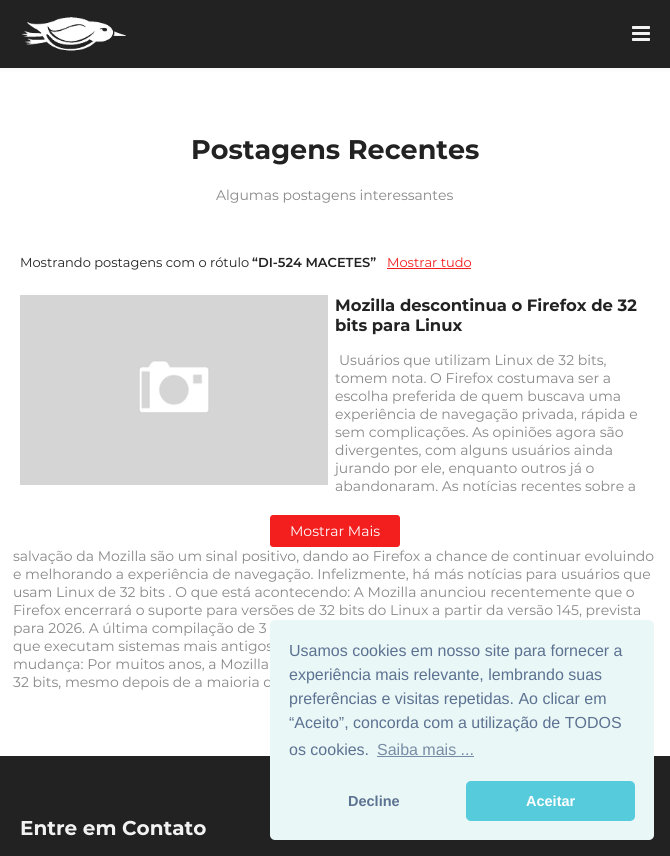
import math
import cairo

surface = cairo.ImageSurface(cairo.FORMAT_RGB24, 670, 856)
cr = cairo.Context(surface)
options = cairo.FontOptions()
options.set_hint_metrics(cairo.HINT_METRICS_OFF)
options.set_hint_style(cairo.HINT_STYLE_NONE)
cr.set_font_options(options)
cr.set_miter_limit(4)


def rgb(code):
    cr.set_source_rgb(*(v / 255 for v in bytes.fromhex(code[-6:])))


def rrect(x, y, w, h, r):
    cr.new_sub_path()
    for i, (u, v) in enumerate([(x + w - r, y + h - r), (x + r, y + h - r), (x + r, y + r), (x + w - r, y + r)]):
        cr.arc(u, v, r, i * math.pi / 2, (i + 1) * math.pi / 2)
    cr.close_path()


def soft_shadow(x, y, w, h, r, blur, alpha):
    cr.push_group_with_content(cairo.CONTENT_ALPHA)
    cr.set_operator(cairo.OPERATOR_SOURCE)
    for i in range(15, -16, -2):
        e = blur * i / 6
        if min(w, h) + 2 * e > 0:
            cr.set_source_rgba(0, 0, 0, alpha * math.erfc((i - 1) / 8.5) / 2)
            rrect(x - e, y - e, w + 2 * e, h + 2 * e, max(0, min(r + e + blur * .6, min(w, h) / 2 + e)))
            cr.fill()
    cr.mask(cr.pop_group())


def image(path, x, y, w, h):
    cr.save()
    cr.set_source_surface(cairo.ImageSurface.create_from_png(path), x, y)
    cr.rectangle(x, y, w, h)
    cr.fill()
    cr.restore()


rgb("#ffffff")
cr.paint()
rgb("#000000")
soft_shadow(-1, -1, 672, 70, 0, 2.5, 0.05)
rgb("#222222")
cr.rectangle(0, 0, 670, 68)
cr.fill()
image("img/1.png", 22, 17, 104, 34)
image("img/2.png", 632, 26, 18, 15)
rgb("#f31e1e")
cr.rectangle(387, 268, 84, 1)
cr.fill()
image("img/3.png", 20, 295, 308, 190)
rrect(270, 515, 130, 32, 3)
cr.fill()
rgb("#222222")
cr.rectangle(0, 756, 670, 100)
cr.fill()
cr.select_font_face("Montserrat", cairo.FONT_SLANT_NORMAL, cairo.FONT_WEIGHT_BOLD)
cr.set_font_size(27)
cr.move_to(191, 159)
cr.show_text("Postagens Recentes")
cr.select_font_face("Montserrat")
cr.set_font_size(14)
rgb("#888888")
cr.move_to(216, 200)
cr.show_text("Algumas postagens interessantes")
cr.set_font_size(13)
rgb("#222222")
cr.move_to(20, 267)
cr.show_text("Mostrando postagens com o rótulo")
cr.select_font_face("Montserrat SemiBold")
cr.move_to(252, 267)
cr.show_text("“DI-524 MACETES”")
cr.select_font_face("Montserrat")
rgb("#f31e1e")
cr.move_to(387, 267)
cr.show_text("Mostrar tudo")
cr.set_font_size(14)
rgb("#ffffff")
cr.move_to(290, 536)
cr.show_text("Mostrar Mais")
cr.select_font_face("Montserrat", cairo.FONT_SLANT_NORMAL, cairo.FONT_WEIGHT_BOLD)
cr.set_font_size(16.4)
rgb("#222222")
cr.move_to(335, 311)
cr.show_text("Mozilla descontinua o Firefox de 32")
cr.move_to(335, 331)
cr.show_text("bits para Linux")
cr.select_font_face("Montserrat")
cr.set_font_size(14)
rgb("#888888")
for x, y, s in [
    (339, 365, "Usuários que utilizam Linux de 32 bits,"),
    (335, 383, "tomem nota. O Firefox costumava ser a"),
    (335, 401, "escolha preferida de quem buscava uma"),
    (335, 419, "experiência de navegação privada, rápida e"),
    (335, 437, "sem complicações. As opiniões agora são"),
    (335, 455, "divergentes, com alguns usuários ainda"),
    (335, 473, "jurando por ele, enquanto outros já o"),
    (335, 491, "abandonaram. As notícias recentes sobre a"),
    (13, 561, "salvação da Mozilla são um sinal positivo, dando ao Firefox a chance de continuar evoluindo"),
    (13, 579, "e melhorando a experiência de navegação. Infelizmente, há más notícias para usuários que"),
    (13, 597, "usam Linux de 32 bits . O que está acontecendo: A Mozilla anunciou recentemente que o"),
    (13, 615, "Firefox encerrará o suporte para versões de 32 bits do Linux a partir da versão 145, prevista"),
    (13, 633, "para 2026. A última compilação de 3"),
    (13, 651, "que executam sistemas mais antigos"),
    (13, 669, "mudança: Por muitos anos, a Mozilla"),
    (13, 687, "32 bits, mesmo depois de a maioria d"),
]:
    cr.move_to(x, y)
    cr.show_text(s)
cr.select_font_face("Montserrat", cairo.FONT_SLANT_NORMAL, cairo.FONT_WEIGHT_BOLD)
cr.set_font_size(20)
rgb("#f2f2f2")
cr.move_to(20, 835)
cr.show_text("Entre em Contato")
rgb("#eaf7f7")
rrect(270, 620, 384, 220, 5)
cr.fill()
cr.select_font_face("Liberation Sans")
cr.set_font_size(16)
rgb("#5c7291")
for x, y, s in [
    (289, 656, "Usamos cookies em nosso site para fornecer a"),
    (289, 680, "experiência mais relevante, lembrando suas"),
    (289, 704, "preferências e visitas repetidas. Ao clicar em"),
    (289, 728, "“Aceito”, concorda com a utilização de TODOS"),
    (289, 755, "os cookies."),
]:
    cr.move_to(x, y)
    cr.show_text(s)
rgb("#788da5")
cr.move_to(377, 755)
cr.show_text("Saiba mais ...")
cr.rectangle(377, 756, 97, 1)
cr.fill()
cr.select_font_face("Liberation Sans", cairo.FONT_SLANT_NORMAL, cairo.FONT_WEIGHT_BOLD)
cr.set_font_size(14.5)
rgb("#5c7291")
cr.move_to(348, 806)
cr.show_text("Decline")
rgb("#56cbdb")
rrect(466, 781, 169, 40, 5)
cr.fill()
rgb("#ffffff")
cr.move_to(526, 806)
cr.show_text("Aceitar")
surface.write_to_png("page.png")
